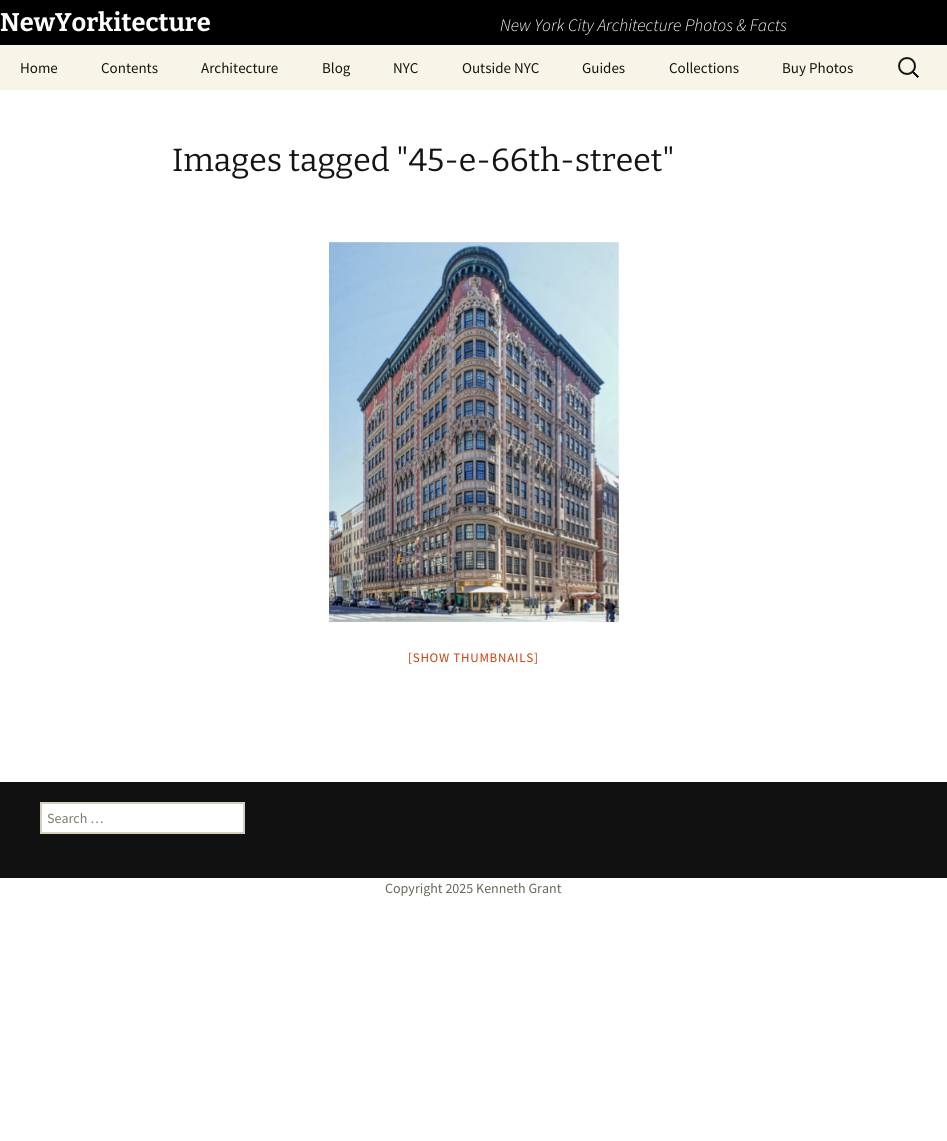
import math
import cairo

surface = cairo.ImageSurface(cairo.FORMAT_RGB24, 947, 1141)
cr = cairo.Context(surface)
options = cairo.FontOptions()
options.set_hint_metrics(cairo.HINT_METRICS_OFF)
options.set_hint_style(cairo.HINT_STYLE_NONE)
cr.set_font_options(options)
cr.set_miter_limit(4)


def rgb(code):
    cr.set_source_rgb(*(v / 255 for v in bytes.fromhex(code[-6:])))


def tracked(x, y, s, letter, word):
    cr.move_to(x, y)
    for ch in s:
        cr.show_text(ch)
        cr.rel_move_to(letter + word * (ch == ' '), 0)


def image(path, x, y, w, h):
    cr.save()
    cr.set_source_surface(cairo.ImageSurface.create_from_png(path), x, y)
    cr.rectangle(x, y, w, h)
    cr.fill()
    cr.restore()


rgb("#ffffff")
cr.paint()
rgb("#000000")
cr.rectangle(0, 0, 947, 45)
cr.fill()
rgb("#f7f5e7")
cr.rectangle(0, 45, 947, 45)
cr.fill()
image("img/1.png", 898, 57, 21, 21)
image("img/2.png", 329, 242, 290, 380)
rgb("#111111")
cr.rectangle(0, 782, 947, 96)
cr.fill()
rgb("#ffffff")
cr.rectangle(41, 803, 203, 30)
cr.fill_preserve()
rgb("#d4d0ba")
cr.stroke()
cr.select_font_face("Bitter Thin")
cr.set_font_size(25.5)
rgb("#ffffff")
cr.move_to(0, 31)
cr.show_text("NewYorkitecture")
cr.select_font_face("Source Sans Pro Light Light", cairo.FONT_SLANT_ITALIC)
cr.set_font_size(17.6)
cr.move_to(500, 31)
cr.show_text("New York City Architecture Photos & Facts")
cr.select_font_face("Source Sans Pro")
cr.set_font_size(15)
rgb("#141412")
for x, y, s in [
    (20, 73, "Home"),
    (101, 73, "Contents"),
    (201, 73, "Architecture"),
    (322, 73, "Blog"),
    (393, 73, "NYC"),
    (462, 73, "Outside NYC"),
    (582, 73, "Guides"),
    (669, 73, "Collections"),
    (782, 73, "Buy Photos"),
]:
    cr.move_to(x, y)
    cr.show_text(s)
cr.select_font_face("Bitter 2 Thin")
cr.set_font_size(32)
cr.move_to(172, 171)
cr.show_text("Images tagged \"45-e-66th-street\"")
cr.select_font_face("Source Sans Pro")
cr.set_font_size(13)
rgb("#ca3c08")
tracked(408, 662, "[SHOW THUMBNAILS]", 0.75, 0)
cr.set_font_size(14)
rgb("#7d7b6d")
cr.move_to(47, 823)
cr.show_text("Search …")
rgb("#686758")
cr.move_to(385, 893)
cr.show_text("Copyright 2025 Kenneth Grant")
surface.write_to_png("page.png")
